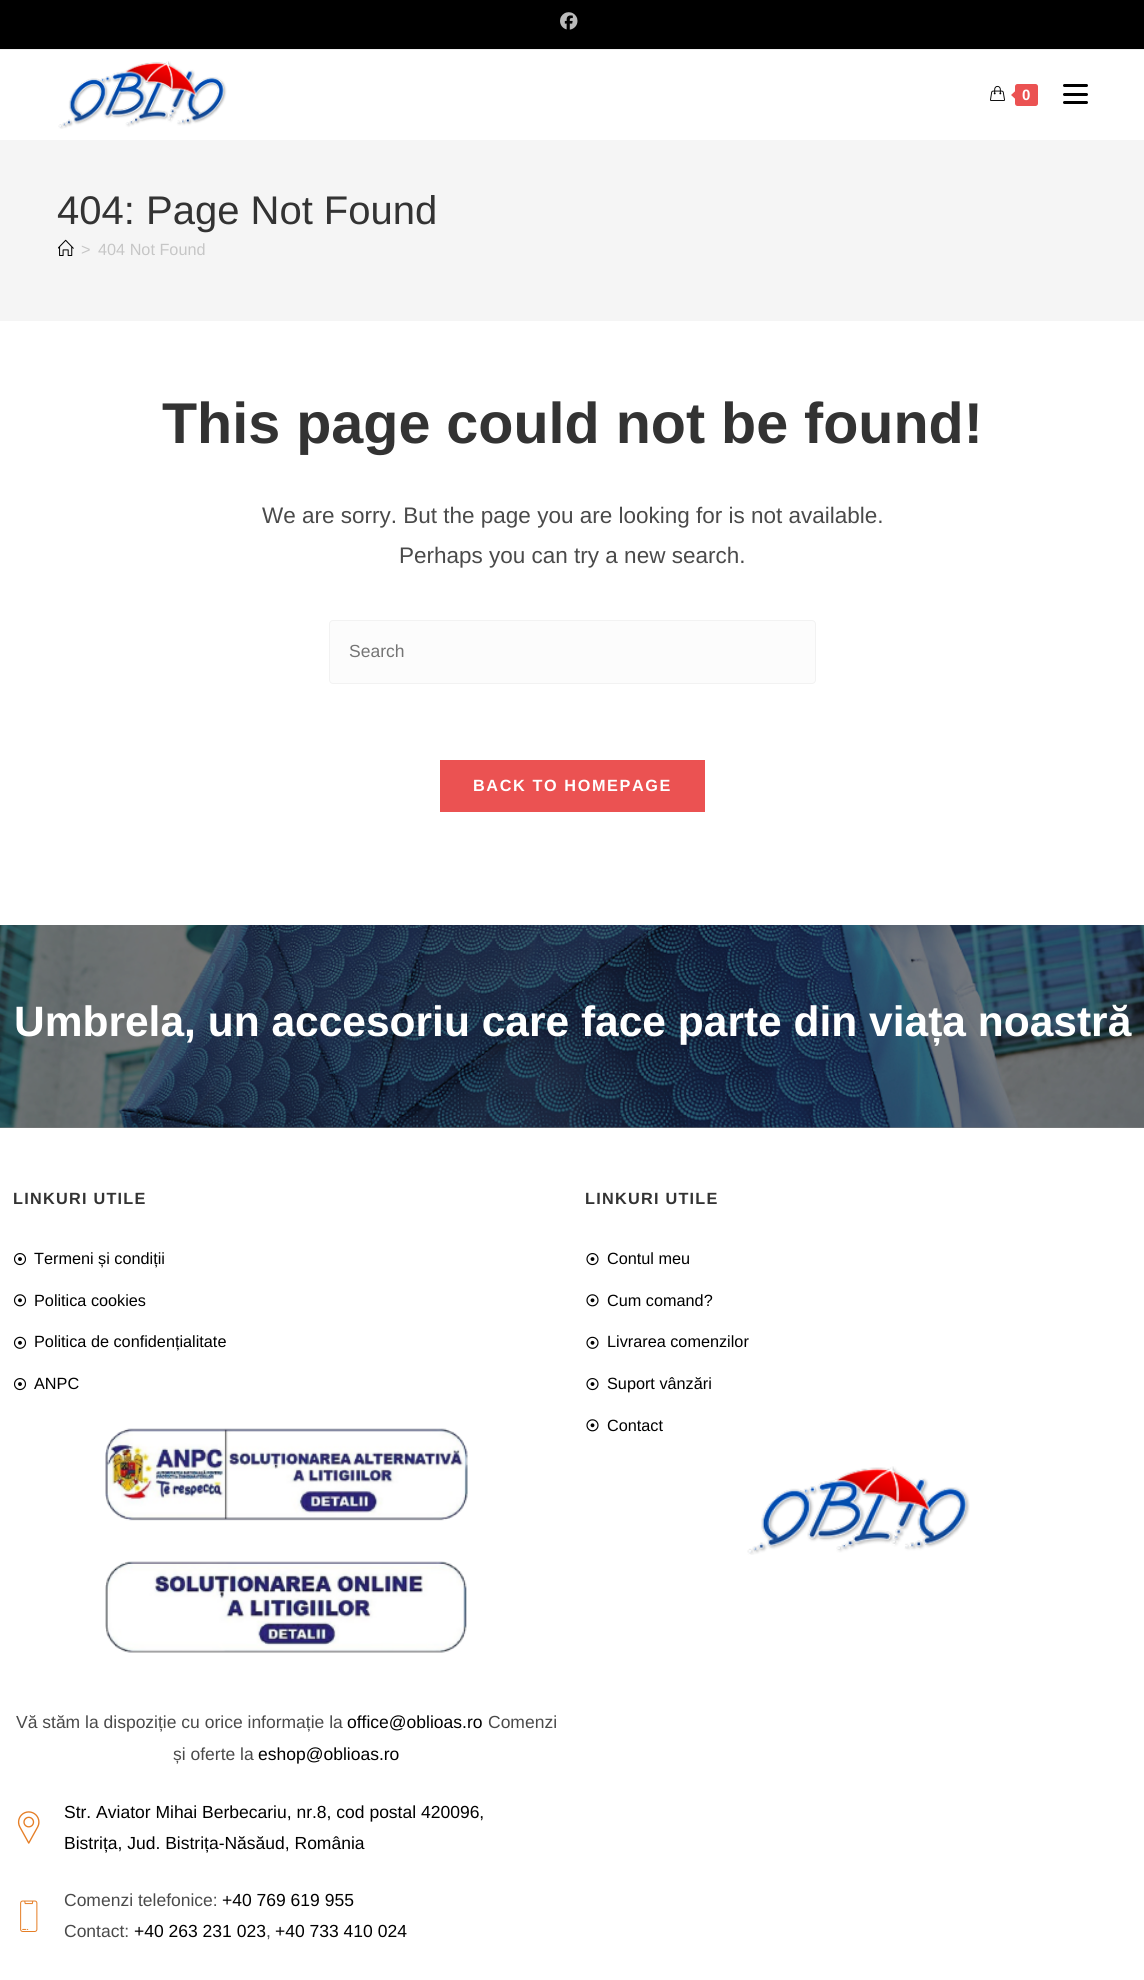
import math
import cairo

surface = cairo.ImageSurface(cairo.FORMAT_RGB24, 1144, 1980)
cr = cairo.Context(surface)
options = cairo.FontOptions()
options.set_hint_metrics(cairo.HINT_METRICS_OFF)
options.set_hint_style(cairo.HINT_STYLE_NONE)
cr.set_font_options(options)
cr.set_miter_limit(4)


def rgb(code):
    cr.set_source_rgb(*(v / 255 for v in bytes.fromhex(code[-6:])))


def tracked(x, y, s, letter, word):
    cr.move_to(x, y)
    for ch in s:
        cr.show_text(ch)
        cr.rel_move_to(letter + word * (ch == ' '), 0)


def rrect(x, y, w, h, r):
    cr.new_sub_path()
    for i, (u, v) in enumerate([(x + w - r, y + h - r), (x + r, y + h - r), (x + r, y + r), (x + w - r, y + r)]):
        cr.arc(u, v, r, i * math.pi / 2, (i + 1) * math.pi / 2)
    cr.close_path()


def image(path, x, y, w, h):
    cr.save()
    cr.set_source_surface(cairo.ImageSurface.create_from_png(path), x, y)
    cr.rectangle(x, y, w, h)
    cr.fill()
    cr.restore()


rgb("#ffffff")
cr.paint()
for x, y, w, h, color in [
    (0, 1127, 1144, 1, "#808080"),
    (0, 0, 1144, 49, "#000000"),
    (0, 49, 1144, 1, "#f1f1f1"),
]:
    rgb(color)
    cr.rectangle(x, y, w, h)
    cr.fill()
image("img/1.png", 560, 12, 18, 18)
image("img/2.png", 58, 61, 169, 68)
image("img/3.png", 990, 85, 15, 16)
rgb("#eb5252")
rrect(1015, 84, 23, 22, 2.5)
cr.fill()
cr.new_path()
cr.move_to(1017.5, 89)
cr.line_to(1017.5, 101)
cr.line_to(1011, 95)
cr.close_path()
cr.fill()
rgb("#000000")
rrect(1063, 101, 25, 3, 1.5)
cr.fill()
rrect(1063, 84, 25, 3, 1.5)
cr.fill()
rrect(1063, 93, 25, 3, 1.5)
cr.fill()
rgb("#f5f5f5")
cr.rectangle(0, 140, 1144, 181)
cr.fill()
image("img/4.png", 58, 239, 16, 17)
rgb("#fcfcfc")
rrect(329.5, 620.5, 486, 63, 3.5)
cr.fill_preserve()
rgb("#f2f2f2")
cr.set_line_width(1)
cr.stroke()
rgb("#eb5252")
cr.rectangle(440, 760, 265, 52)
cr.fill()
image("img/5.png", 0, 925, 1144, 203)
image("img/6.png", 14, 1253, 12, 13)
image("img/7.png", 13, 1294, 14, 13)
image("img/8.png", 13, 1336, 14, 13)
image("img/6.png", 14, 1378, 12, 13)
image("img/9.png", 105, 1428, 363, 93)
image("img/10.png", 105, 1561, 362, 92)
image("img/11.png", 586, 1253, 13, 13)
image("img/12.png", 586, 1294, 13, 13)
image("img/13.png", 586, 1336, 13, 13)
image("img/11.png", 586, 1378, 13, 13)
image("img/12.png", 586, 1419, 13, 13)
image("img/14.png", 747, 1466, 223, 89)
image("img/15.png", 17, 1811, 23, 33)
image("img/16.png", 20, 1900, 18, 32)
cr.select_font_face("Liberation Sans", cairo.FONT_SLANT_NORMAL, cairo.FONT_WEIGHT_BOLD)
cr.set_font_size(15)
rgb("#ffffff")
tracked(1022, 100, "0", 2, 0)
cr.select_font_face("Liberation Sans")
cr.set_font_size(40)
rgb("#333333")
cr.move_to(57, 224)
cr.show_text("404: Page Not Found")
cr.set_font_size(16.25)
rgb("#c6c6c6")
cr.move_to(81, 255)
cr.show_text(">")
cr.move_to(98, 255)
cr.show_text("404 Not Found")
cr.select_font_face("Liberation Sans", cairo.FONT_SLANT_NORMAL, cairo.FONT_WEIGHT_BOLD)
cr.set_font_size(57.5)
rgb("#333333")
cr.move_to(162, 443)
cr.show_text("This page could not be found!")
cr.select_font_face("Liberation Sans")
cr.set_font_size(22.5)
rgb("#4a4a4a")
cr.move_to(262, 523)
cr.show_text("We are sorry. But the page you are looking for is not available.")
cr.move_to(399, 563)
cr.show_text("Perhaps you can try a new search.")
cr.set_font_size(17.5)
rgb("#757575")
cr.move_to(349, 657)
cr.show_text("Search")
cr.select_font_face("Liberation Sans", cairo.FONT_SLANT_NORMAL, cairo.FONT_WEIGHT_BOLD)
cr.set_font_size(16.25)
rgb("#ffffff")
tracked(473, 791, "BACK TO HOMEPAGE", 1.6, 0)
cr.set_font_size(42.5)
cr.move_to(14, 1036)
cr.show_text("Umbrela, un accesoriu care face parte din viața noastră")
cr.set_font_size(16.25)
rgb("#333333")
tracked(13, 1204, "LINKURI UTILE", 1.25, 0)
cr.select_font_face("Liberation Sans")
rgb("#000000")
for x, y, s in [
    (34, 1264, "Termeni și condiții"),
    (34, 1306, "Politica cookies"),
    (34, 1347, "Politica de confidențialitate"),
    (34, 1389, "ANPC"),
]:
    cr.move_to(x, y)
    cr.show_text(s)
cr.select_font_face("Liberation Sans", cairo.FONT_SLANT_NORMAL, cairo.FONT_WEIGHT_BOLD)
rgb("#333333")
tracked(585, 1204, "LINKURI UTILE", 1.25, 0)
cr.select_font_face("Liberation Sans")
rgb("#000000")
for x, y, s in [
    (607, 1264, "Contul meu"),
    (607, 1306, "Cum comand?"),
    (607, 1347, "Livrarea comenzilor"),
    (607, 1389, "Suport vânzări"),
    (607, 1431, "Contact"),
]:
    cr.move_to(x, y)
    cr.show_text(s)
cr.set_font_size(17.5)
rgb("#4a4a4a")
cr.move_to(16, 1728)
cr.show_text("Vă stăm la dispoziție cu orice informație la")
rgb("#000000")
cr.move_to(347, 1728)
cr.show_text("office@oblioas.ro")
rgb("#4a4a4a")
cr.move_to(488, 1728)
cr.show_text("Comenzi")
cr.move_to(173, 1760)
cr.show_text("și oferte la")
rgb("#000000")
for x, y, s in [
    (258, 1760, "eshop@oblioas.ro"),
    (64, 1818, "Str. Aviator Mihai Berbecariu, nr.8, cod postal 420096,"),
    (64, 1849, "Bistrița, Jud. Bistrița-Năsăud, România"),
]:
    cr.move_to(x, y)
    cr.show_text(s)
rgb("#4a4a4a")
cr.move_to(64, 1906)
cr.show_text("Comenzi telefonice:")
rgb("#000000")
cr.move_to(222, 1906)
cr.show_text("+40 769 619 955")
rgb("#4a4a4a")
cr.move_to(64, 1937)
cr.show_text("Contact:")
rgb("#000000")
cr.move_to(134, 1937)
cr.show_text("+40 263 231 023")
rgb("#4a4a4a")
cr.move_to(266, 1937)
cr.show_text(",")
rgb("#000000")
cr.move_to(275, 1937)
cr.show_text("+40 733 410 024")
surface.write_to_png("page.png")
